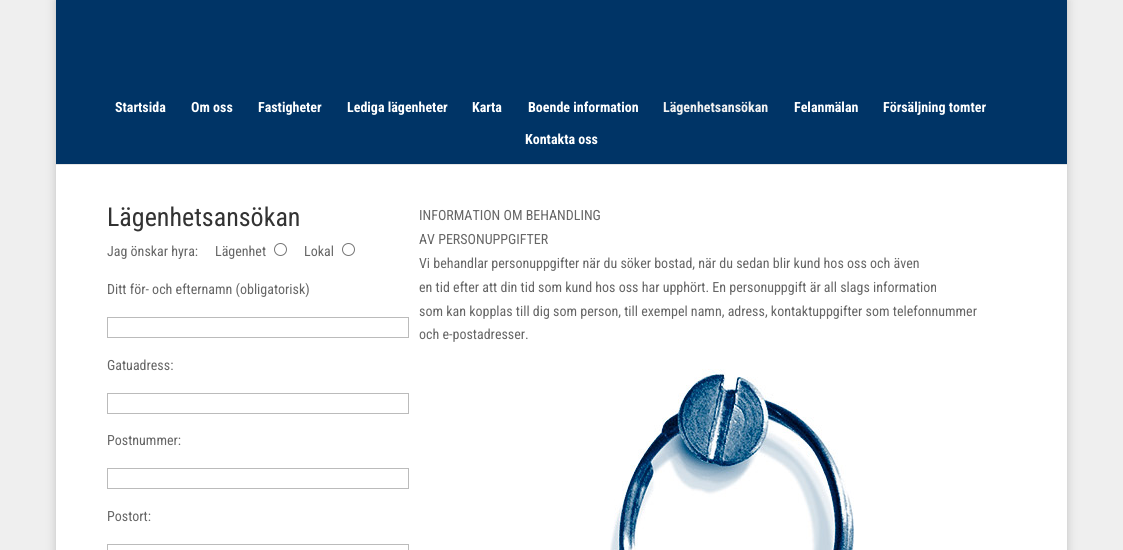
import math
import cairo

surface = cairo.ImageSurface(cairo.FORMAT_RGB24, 1123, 550)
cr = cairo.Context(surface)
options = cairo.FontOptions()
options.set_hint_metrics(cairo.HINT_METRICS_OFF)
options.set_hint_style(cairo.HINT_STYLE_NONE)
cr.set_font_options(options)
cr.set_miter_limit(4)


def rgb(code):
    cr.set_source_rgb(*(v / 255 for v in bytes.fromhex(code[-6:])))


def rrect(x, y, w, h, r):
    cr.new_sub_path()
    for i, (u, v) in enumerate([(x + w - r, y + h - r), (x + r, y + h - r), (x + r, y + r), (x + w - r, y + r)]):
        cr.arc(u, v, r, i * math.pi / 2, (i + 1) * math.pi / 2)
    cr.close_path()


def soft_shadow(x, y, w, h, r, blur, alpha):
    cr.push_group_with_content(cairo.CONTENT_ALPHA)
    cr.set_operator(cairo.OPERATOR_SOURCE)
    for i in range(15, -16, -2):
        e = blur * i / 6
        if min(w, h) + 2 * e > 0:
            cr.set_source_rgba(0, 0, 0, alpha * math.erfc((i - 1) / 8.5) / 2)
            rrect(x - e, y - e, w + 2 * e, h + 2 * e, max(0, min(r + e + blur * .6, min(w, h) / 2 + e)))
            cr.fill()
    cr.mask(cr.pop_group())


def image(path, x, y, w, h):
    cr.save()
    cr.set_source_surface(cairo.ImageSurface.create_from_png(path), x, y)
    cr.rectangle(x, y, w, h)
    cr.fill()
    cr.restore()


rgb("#efefef")
cr.paint()
rgb("#000000")
soft_shadow(56, 0, 1011, 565, 0, 5, 0.2)
for x, y, w, h, color in [
    (56, 164, 1011, 1, "#e6e6e6"),
    (56, 0, 1011, 164, "#003466"),
    (56, 165, 1011, 385, "#ffffff"),
]:
    rgb(color)
    cr.rectangle(x, y, w, h)
    cr.fill()
cr.arc(280.5, 249.5, 6, 0, 2 * math.pi)
rgb("#767676")
cr.set_line_width(1)
cr.stroke()
cr.arc(348.5, 249.5, 6, 0, 2 * math.pi)
cr.stroke()
cr.rectangle(107.5, 317.5, 301, 20)
rgb("#bbbbbb")
cr.stroke()
cr.rectangle(107.5, 393.5, 301, 20)
cr.stroke()
cr.rectangle(107.5, 468.5, 301, 20)
cr.stroke()
cr.rectangle(107.5, 544.5, 301, 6)
cr.stroke()
image("img/1.png", 610, 369, 244, 181)
cr.select_font_face("Roboto Condensed", cairo.FONT_SLANT_NORMAL, cairo.FONT_WEIGHT_BOLD)
cr.set_font_size(14)
rgb("#ffffff")
for x, y, s in [
    (115, 112, "Startsida"),
    (191, 112, "Om oss"),
    (258, 112, "Fastigheter"),
    (347, 112, "Lediga lägenheter"),
    (472, 112, "Karta"),
    (528, 112, "Boende information"),
]:
    cr.move_to(x, y)
    cr.show_text(s)
rgb("#f1f1f1")
cr.move_to(663, 112)
cr.show_text("Lägenhetsansökan")
rgb("#ffffff")
for x, y, s in [
    (794, 112, "Felanmälan"),
    (883, 112, "Försäljning tomter"),
    (525, 144, "Kontakta oss"),
]:
    cr.move_to(x, y)
    cr.show_text(s)
cr.select_font_face("Roboto Condensed")
cr.set_font_size(26)
rgb("#333333")
cr.move_to(107, 226)
cr.show_text("Lägenhetsansökan")
cr.set_font_size(14)
rgb("#666666")
for x, y, s in [
    (107, 256, "Jag önskar hyra:"),
    (215, 256, "Lägenhet"),
    (304, 256, "Lokal"),
    (107, 294, "Ditt för- och efternamn (obligatorisk)"),
    (107, 370, "Gatuadress:"),
    (107, 445, "Postnummer:"),
    (107, 521, "Postort:"),
    (419, 220, "INFORMATION OM BEHANDLING"),
    (419, 244, "AV PERSONUPPGIFTER"),
    (419, 268, "Vi behandlar personuppgifter när du söker bostad, när du sedan blir kund hos oss och även"),
    (419, 292, "en tid efter att din tid som kund hos oss har upphört. En personuppgift är all slags information"),
    (419, 316, "som kan kopplas till dig som person, till exempel namn, adress, kontaktuppgifter som telefonnummer"),
    (419, 339, "och e-postadresser."),
]:
    cr.move_to(x, y)
    cr.show_text(s)
surface.write_to_png("page.png")
